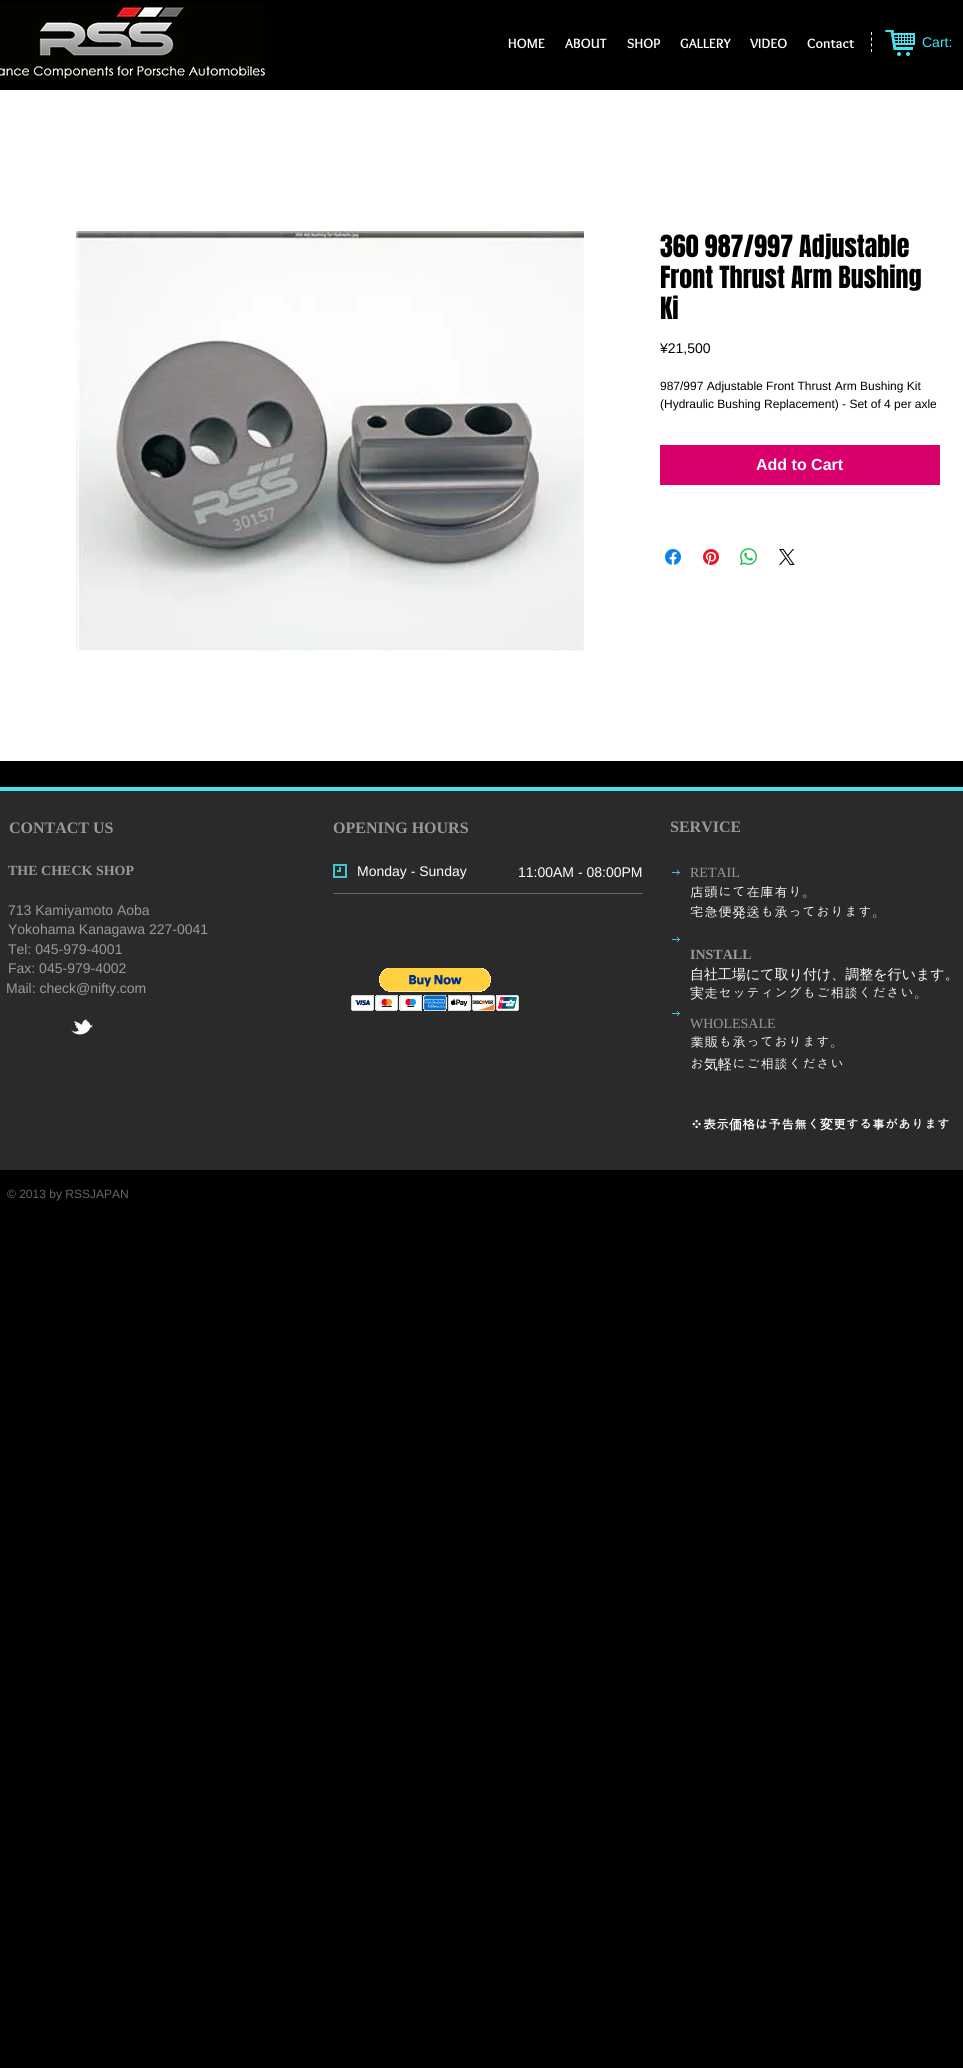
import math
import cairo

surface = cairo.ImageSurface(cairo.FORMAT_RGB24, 963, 2068)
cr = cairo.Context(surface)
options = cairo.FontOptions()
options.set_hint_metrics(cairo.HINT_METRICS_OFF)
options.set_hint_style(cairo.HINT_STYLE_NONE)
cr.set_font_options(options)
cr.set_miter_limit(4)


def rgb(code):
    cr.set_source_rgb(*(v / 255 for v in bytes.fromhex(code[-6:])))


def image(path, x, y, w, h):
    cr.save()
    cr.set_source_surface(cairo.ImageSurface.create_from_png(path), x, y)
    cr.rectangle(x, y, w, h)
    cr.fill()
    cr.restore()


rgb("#000000")
cr.paint()
image("img/1.png", 0, 2, 265, 79)
cr.new_path()
cr.move_to(871.5, 32)
cr.line_to(871.5, 52)
rgb("#ffffff")
cr.set_line_width(1)
cr.set_dash([3, 2.67])
cr.stroke()
image("img/2.png", 885, 30, 30, 26)
cr.rectangle(0, 90, 963, 671)
cr.fill()
image("img/3.png", 76, 231, 508, 420)
rgb("#d9006d")
cr.rectangle(660, 445, 280, 40)
cr.fill()
image("img/4.png", 665, 549, 16, 16)
image("img/5.png", 703, 549, 16, 16)
image("img/6.png", 740, 548, 17, 17)
image("img/7.png", 779, 549, 16, 16)
rgb("#2a2a2a")
cr.rectangle(0, 791, 963, 379)
cr.fill()
rgb("#44e3ef")
cr.rectangle(0, 787, 963, 4)
cr.fill()
image("img/8.png", 333, 864, 14, 14)
image("img/9.png", 672, 870, 8, 5)
rgb("#666666")
cr.rectangle(333, 893, 310, 1)
cr.fill()
image("img/9.png", 672, 937, 8, 5)
image("img/10.png", 351, 968, 168, 43)
image("img/9.png", 672, 1011, 8, 5)
image("img/11.png", 71, 1019, 22, 16)
cr.select_font_face("Overlock", cairo.FONT_SLANT_NORMAL, cairo.FONT_WEIGHT_BOLD)
cr.set_font_size(14)
rgb("#ffffff")
for x, y, s in [
    (508, 48, "HOME"),
    (565, 48, "ABOUT"),
    (627, 48, "SHOP"),
    (680, 48, "GALLERY"),
    (750, 48, "VIDEO"),
    (807, 48, "Contact"),
]:
    cr.move_to(x, y)
    cr.show_text(s)
cr.select_font_face("Liberation Sans")
rgb("#44e3ef")
cr.move_to(922, 47)
cr.show_text("Cart:")
cr.select_font_face("Anton")
cr.set_font_size(26)
rgb("#000000")
for x, y, s in [
    (660, 257, "360 987/997 Adjustable"),
    (660, 288, "Front Thrust Arm Bushing"),
    (660, 319, "Ki"),
]:
    cr.move_to(x, y)
    cr.show_text(s)
cr.select_font_face("Liberation Sans")
cr.set_font_size(14)
cr.move_to(660, 353)
cr.show_text("¥21,500")
cr.set_font_size(12)
cr.move_to(660, 390)
cr.show_text("987/997 Adjustable Front Thrust Arm Bushing Kit")
cr.move_to(660, 408)
cr.show_text("(Hydraulic Bushing Replacement) - Set of 4 per axle")
cr.select_font_face("Liberation Sans", cairo.FONT_SLANT_NORMAL, cairo.FONT_WEIGHT_BOLD)
cr.set_font_size(16)
rgb("#ffffff")
cr.move_to(756, 470)
cr.show_text("Add to Cart")
cr.select_font_face("Liberation Serif", cairo.FONT_SLANT_NORMAL, cairo.FONT_WEIGHT_BOLD)
rgb("#999999")
for x, y, s in [
    (9, 833, "CONTACT US"),
    (333, 833, "OPENING HOURS"),
    (670, 832, "SERVICE"),
]:
    cr.move_to(x, y)
    cr.show_text(s)
cr.set_font_size(14)
cr.move_to(8, 875)
cr.show_text("THE CHECK SHOP")
cr.select_font_face("Liberation Sans")
for x, y, s in [
    (8, 915, "713 Kamiyamoto Aoba"),
    (8, 934, "Yokohama Kanagawa 227-0041"),
    (8, 954, "Tel: 045-979-4001"),
    (8, 973, "Fax: 045-979-4002"),
]:
    cr.move_to(x, y)
    cr.show_text(s)
rgb("#ffffff")
cr.move_to(357, 876)
cr.show_text("Monday - Sunday")
cr.move_to(518, 877)
cr.show_text("11:00AM - 08:00PM")
cr.select_font_face("Liberation Serif")
rgb("#999999")
cr.move_to(690, 877)
cr.show_text("RETAIL")
cr.select_font_face("Dotum")
rgb("#ffffff")
cr.move_to(690, 897)
cr.show_text("店頭にて在庫有り。")
cr.move_to(690, 917)
cr.show_text("宅急便")
cr.select_font_face("WenQuanYi Zen Hei Medium")
cr.move_to(732, 917)
cr.show_text("発")
cr.select_font_face("Dotum")
cr.move_to(746, 917)
cr.show_text("送も承っております。")
cr.select_font_face("Liberation Sans")
rgb("#999999")
cr.move_to(6, 993)
cr.show_text("Mail: check@nifty.com")
cr.select_font_face("Liberation Serif", cairo.FONT_SLANT_NORMAL, cairo.FONT_WEIGHT_BOLD)
cr.move_to(690, 959)
cr.show_text("INSTALL")
cr.select_font_face("WenQuanYi Zen Hei Medium")
rgb("#ffffff")
cr.move_to(690, 979)
cr.show_text("自社工場にて取り付け、調整を行います。")
cr.move_to(690, 998)
cr.show_text("実")
cr.select_font_face("Dotum")
cr.move_to(704, 998)
cr.show_text("走セッティングもご相談ください。")
cr.select_font_face("Liberation Serif")
rgb("#999999")
cr.move_to(690, 1028)
cr.show_text("WHOLESALE")
cr.select_font_face("Dotum")
rgb("#ffffff")
cr.move_to(690, 1047)
cr.show_text("業販も承っております。")
cr.move_to(690, 1069)
cr.show_text("お")
cr.select_font_face("WenQuanYi Zen Hei Medium")
cr.move_to(704, 1069)
cr.show_text("気軽")
cr.select_font_face("Dotum")
cr.move_to(732, 1069)
cr.show_text("にご相談ください")
cr.select_font_face("Dotum", cairo.FONT_SLANT_NORMAL, cairo.FONT_WEIGHT_BOLD)
cr.set_font_size(13)
cr.move_to(690, 1129)
cr.show_text("※表示")
cr.select_font_face("WenQuanYi Zen Hei", cairo.FONT_SLANT_NORMAL, cairo.FONT_WEIGHT_BOLD)
cr.move_to(729, 1129)
cr.show_text("価")
cr.select_font_face("Dotum", cairo.FONT_SLANT_NORMAL, cairo.FONT_WEIGHT_BOLD)
cr.move_to(742, 1129)
cr.show_text("格は予告無く")
cr.select_font_face("WenQuanYi Zen Hei", cairo.FONT_SLANT_NORMAL, cairo.FONT_WEIGHT_BOLD)
cr.move_to(820, 1129)
cr.show_text("変")
cr.select_font_face("Dotum", cairo.FONT_SLANT_NORMAL, cairo.FONT_WEIGHT_BOLD)
cr.move_to(833, 1129)
cr.show_text("更する事があります")
cr.select_font_face("Liberation Sans")
cr.set_font_size(12)
rgb("#666666")
cr.move_to(7, 1198)
cr.show_text("© 2013 by RSSJAPAN")
surface.write_to_png("page.png")
